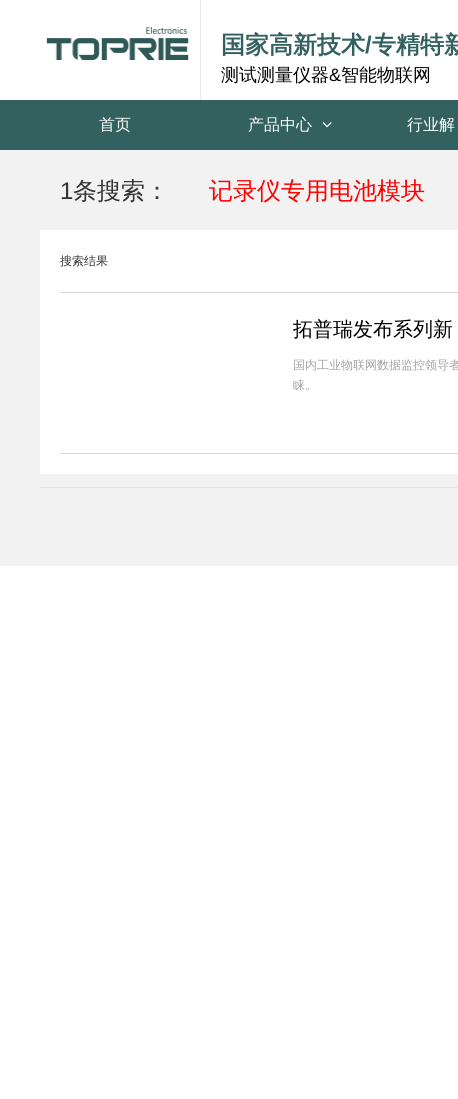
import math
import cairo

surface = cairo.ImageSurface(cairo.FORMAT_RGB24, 458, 1099)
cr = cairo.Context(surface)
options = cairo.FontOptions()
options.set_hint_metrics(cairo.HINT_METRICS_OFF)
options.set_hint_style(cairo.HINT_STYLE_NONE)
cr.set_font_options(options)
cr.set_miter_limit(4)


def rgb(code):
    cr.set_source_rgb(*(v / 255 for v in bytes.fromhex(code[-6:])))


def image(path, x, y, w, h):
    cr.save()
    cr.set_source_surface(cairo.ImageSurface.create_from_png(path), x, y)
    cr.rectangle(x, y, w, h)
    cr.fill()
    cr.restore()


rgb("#ffffff")
cr.paint()
rgb("#e9e9e9")
cr.rectangle(200, 0, 1, 100)
cr.fill()
image("img/1.png", 46, 27, 143, 33)
rgb("#33615f")
cr.rectangle(0, 100, 458, 50)
cr.fill()
image("img/2.png", 322, 122, 10, 6)
for x, y, w, h, color in [
    (0, 150, 458, 416, "#f2f2f2"),
    (40, 230, 418, 244, "#ffffff"),
    (60, 292, 398, 1, "#d6d6d6"),
    (60, 453, 398, 1, "#d6d6d6"),
    (40, 487, 418, 1, "#e0e0e0"),
]:
    rgb(color)
    cr.rectangle(x, y, w, h)
    cr.fill()
cr.select_font_face("WenQuanYi Zen Hei", cairo.FONT_SLANT_NORMAL, cairo.FONT_WEIGHT_BOLD)
cr.set_font_size(24)
rgb("#33615f")
cr.move_to(221, 53)
cr.show_text("国家高新技术")
cr.select_font_face("Liberation Sans", cairo.FONT_SLANT_NORMAL, cairo.FONT_WEIGHT_BOLD)
cr.move_to(365, 53)
cr.show_text("/")
cr.select_font_face("WenQuanYi Zen Hei", cairo.FONT_SLANT_NORMAL, cairo.FONT_WEIGHT_BOLD)
cr.move_to(372, 53)
cr.show_text("专精特新")
cr.select_font_face("WenQuanYi Zen Hei Medium")
cr.set_font_size(18)
rgb("#000000")
cr.move_to(221, 81)
cr.show_text("测试测量仪器")
cr.select_font_face("Liberation Sans")
cr.move_to(329, 81)
cr.show_text("&")
cr.select_font_face("WenQuanYi Zen Hei Medium")
cr.move_to(341, 81)
cr.show_text("智能物联网")
cr.set_font_size(16)
rgb("#ffffff")
for x, y, s in [
    (99, 130, "首页"),
    (248, 130, "产品中心"),
    (407, 130, "行业解"),
]:
    cr.move_to(x, y)
    cr.show_text(s)
cr.select_font_face("Liberation Sans")
cr.set_font_size(24)
rgb("#333333")
cr.move_to(60, 199)
cr.show_text("1")
cr.select_font_face("WenQuanYi Zen Hei Medium")
cr.move_to(73, 199)
cr.show_text("条搜索：")
rgb("#ff0000")
cr.move_to(209, 199)
cr.show_text("记录仪专用电池模块")
cr.set_font_size(12)
rgb("#333333")
cr.move_to(60, 265)
cr.show_text("搜索结果")
cr.set_font_size(20)
rgb("#000000")
cr.move_to(293, 336)
cr.show_text("拓普瑞发布系列新")
cr.set_font_size(12)
rgb("#a2a3a3")
cr.move_to(293, 369)
cr.show_text("国内工业物联网数据监控领导者")
cr.move_to(293, 389)
cr.show_text("睐。")
surface.write_to_png("page.png")
